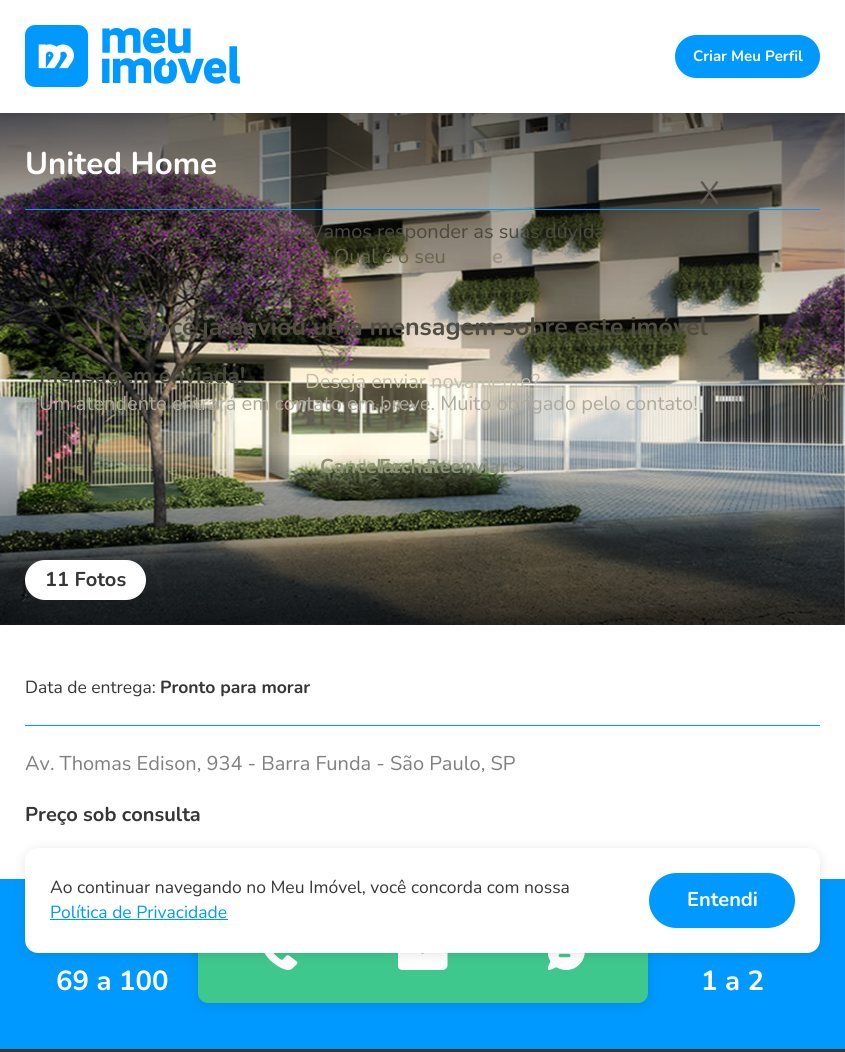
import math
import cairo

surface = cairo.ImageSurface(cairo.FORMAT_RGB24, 845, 1052)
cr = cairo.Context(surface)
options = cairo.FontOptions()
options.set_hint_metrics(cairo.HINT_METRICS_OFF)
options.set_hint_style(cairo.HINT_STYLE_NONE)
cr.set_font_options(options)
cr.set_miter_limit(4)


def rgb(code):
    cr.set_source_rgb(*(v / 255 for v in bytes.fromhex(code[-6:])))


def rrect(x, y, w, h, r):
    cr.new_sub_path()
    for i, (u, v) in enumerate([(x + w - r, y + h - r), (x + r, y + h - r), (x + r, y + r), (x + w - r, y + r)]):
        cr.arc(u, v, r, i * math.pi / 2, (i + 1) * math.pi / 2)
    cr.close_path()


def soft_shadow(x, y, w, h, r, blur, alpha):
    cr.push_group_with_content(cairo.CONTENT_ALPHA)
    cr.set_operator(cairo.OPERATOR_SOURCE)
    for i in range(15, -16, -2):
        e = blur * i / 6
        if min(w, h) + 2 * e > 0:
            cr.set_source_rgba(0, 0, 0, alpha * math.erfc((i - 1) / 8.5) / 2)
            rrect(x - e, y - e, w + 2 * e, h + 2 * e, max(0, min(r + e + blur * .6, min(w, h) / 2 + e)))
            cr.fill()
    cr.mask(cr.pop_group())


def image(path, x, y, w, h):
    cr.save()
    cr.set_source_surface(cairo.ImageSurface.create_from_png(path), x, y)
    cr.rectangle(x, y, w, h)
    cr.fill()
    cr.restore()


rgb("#ffffff")
cr.paint()
image("img/2.png", 0, 113, 845, 512)
gradient = cairo.LinearGradient(422, 0, 423, 625)
gradient.add_color_stop_rgba(0, 0, 0, 0, 0.8)
gradient.add_color_stop_rgba(0.6, 0, 0, 0, 0)
gradient.add_color_stop_rgba(1, 0, 0, 0, 0)
cr.set_source(gradient)
cr.rectangle(0, 113, 845, 253)
cr.fill()
rgb("#000000")
soft_shadow(0, 3, 845, 112, 0, 6, 0.1)
rgb("#ffffff")
cr.rectangle(0, 0, 845, 113)
cr.fill()
image("img/1.png", 25, 25, 215, 62)
rgb("#0099ff")
rrect(675, 35, 145, 43, 21.5)
cr.fill()
cr.rectangle(25, 209, 795, 1)
cr.fill()
gradient = cairo.LinearGradient(423, 450, 423, 625)
gradient.add_color_stop_rgba(0, 0, 0, 0, 0)
gradient.add_color_stop_rgba(1, 0, 0, 0, 0.75)
cr.set_source(gradient)
cr.rectangle(0, 455, 845, 170)
cr.fill()
rgb("#ffffff")
rrect(25, 560, 121, 40, 20)
cr.fill()
for x, y, w, h, color in [
    (25, 725, 795, 1, "#0099ff"),
    (0, 879, 845, 170, "#0099ff"),
    (0, 1049, 845, 3, "#383535"),
]:
    rgb(color)
    cr.rectangle(x, y, w, h)
    cr.fill()
rgb("#000000")
soft_shadow(198, 910, 450, 95, 10, 6, 0.1)
rgb("#3fc88d")
rrect(198, 908, 450, 95, 10)
cr.fill()
image("img/3.png", 264, 953, 34, 17)
image("img/4.png", 398, 953, 50, 17)
image("img/5.png", 548, 953, 37, 17)
rgb("#000000")
soft_shadow(25, 850, 795, 105, 13, 6, 0.1)
rgb("#ffffff")
rrect(25, 848, 795, 105, 13)
cr.fill()
rgb("#0099ff")
cr.rectangle(50, 919, 178, 1)
cr.fill()
rrect(649, 873, 146, 55, 27.5)
cr.fill()
cr.select_font_face("Nunito", cairo.FONT_SLANT_NORMAL, cairo.FONT_WEIGHT_BOLD)
cr.set_font_size(15)
rgb("#ffffff")
cr.move_to(693, 61)
cr.show_text("Criar Meu Perfil")
cr.set_font_size(31.25)
cr.move_to(25, 174)
cr.show_text("United Home")
cr.set_font_size(20)
rgb("#383535")
cr.move_to(45, 586)
cr.show_text("11 Fotos")
cr.select_font_face("Nunito")
cr.set_font_size(17.5)
cr.move_to(25, 693)
cr.show_text("Data de entrega:")
cr.select_font_face("Nunito", cairo.FONT_SLANT_NORMAL, cairo.FONT_WEIGHT_BOLD)
cr.move_to(160, 693)
cr.show_text("Pronto para morar")
cr.select_font_face("Nunito")
cr.set_font_size(20)
rgb("#808080")
cr.move_to(25, 770)
cr.show_text("Av. Thomas Edison, 934 - Barra Funda - São Paulo, SP")
cr.select_font_face("Nunito", cairo.FONT_SLANT_NORMAL, cairo.FONT_WEIGHT_BOLD)
rgb("#383535")
cr.move_to(25, 821)
cr.show_text("Preço sob consulta")
cr.set_font_size(27.5)
rgb("#ffffff")
cr.move_to(56, 990)
cr.show_text("69 a 100")
cr.move_to(701, 990)
cr.show_text("1 a 2")
cr.select_font_face("Nunito")
cr.set_font_size(32)
rgb("#5d5951")
cr.move_to(699, 204)
cr.show_text("X")
cr.set_font_size(20)
rgb("#4c4a3c")
cr.move_to(300, 238)
cr.show_text("! Vamos responder as suas dúvida")
rgb("#66634d")
cr.move_to(334, 263)
cr.show_text("Qual é o seu")
cr.select_font_face("Nunito", cairo.FONT_SLANT_NORMAL, cairo.FONT_WEIGHT_BOLD)
rgb("#9b9285")
cr.move_to(492, 263)
cr.show_text("e")
cr.set_font_size(25)
rgb("#514d42")
cr.move_to(138, 335)
cr.show_text("Você já enviou uma mensagem sobre este imóvel")
cr.select_font_face("Nunito")
cr.set_font_size(20)
rgb("#c3bda9")
cr.move_to(305, 388)
cr.show_text("Deseja enviar novamente?")
cr.select_font_face("Nunito", cairo.FONT_SLANT_NORMAL, cairo.FONT_WEIGHT_BOLD)
rgb("#8c9272")
cr.move_to(320, 473)
cr.show_text("Cancelar")
rgb("#89907d")
cr.move_to(426, 473)
cr.show_text("Reenviar >")
cr.set_font_size(22.5)
rgb("#464838")
cr.move_to(39, 383)
cr.show_text("Mensagem enviada!")
cr.select_font_face("Nunito")
cr.set_font_size(20)
rgb("#aca99c")
cr.move_to(39, 410)
cr.show_text("Um atendente entrará em contato em breve. Muito obrigado pelo contato!")
cr.select_font_face("Nunito", cairo.FONT_SLANT_NORMAL, cairo.FONT_WEIGHT_BOLD)
rgb("#8c9272")
cr.move_to(379, 473)
cr.show_text("Fechar")
cr.select_font_face("Nunito")
cr.set_font_size(32)
rgb("#686157")
cr.move_to(809, 401)
cr.show_text("X")
cr.set_font_size(17.5)
rgb("#383535")
cr.move_to(50, 893)
cr.show_text("Ao continuar navegando no Meu Imóvel, você concorda com nossa")
rgb("#0099ff")
cr.move_to(50, 918)
cr.show_text("Política de Privacidade")
cr.select_font_face("Nunito", cairo.FONT_SLANT_NORMAL, cairo.FONT_WEIGHT_BOLD)
cr.set_font_size(20)
rgb("#ffffff")
cr.move_to(687, 906)
cr.show_text("Entendi")
surface.write_to_png("page.png")
